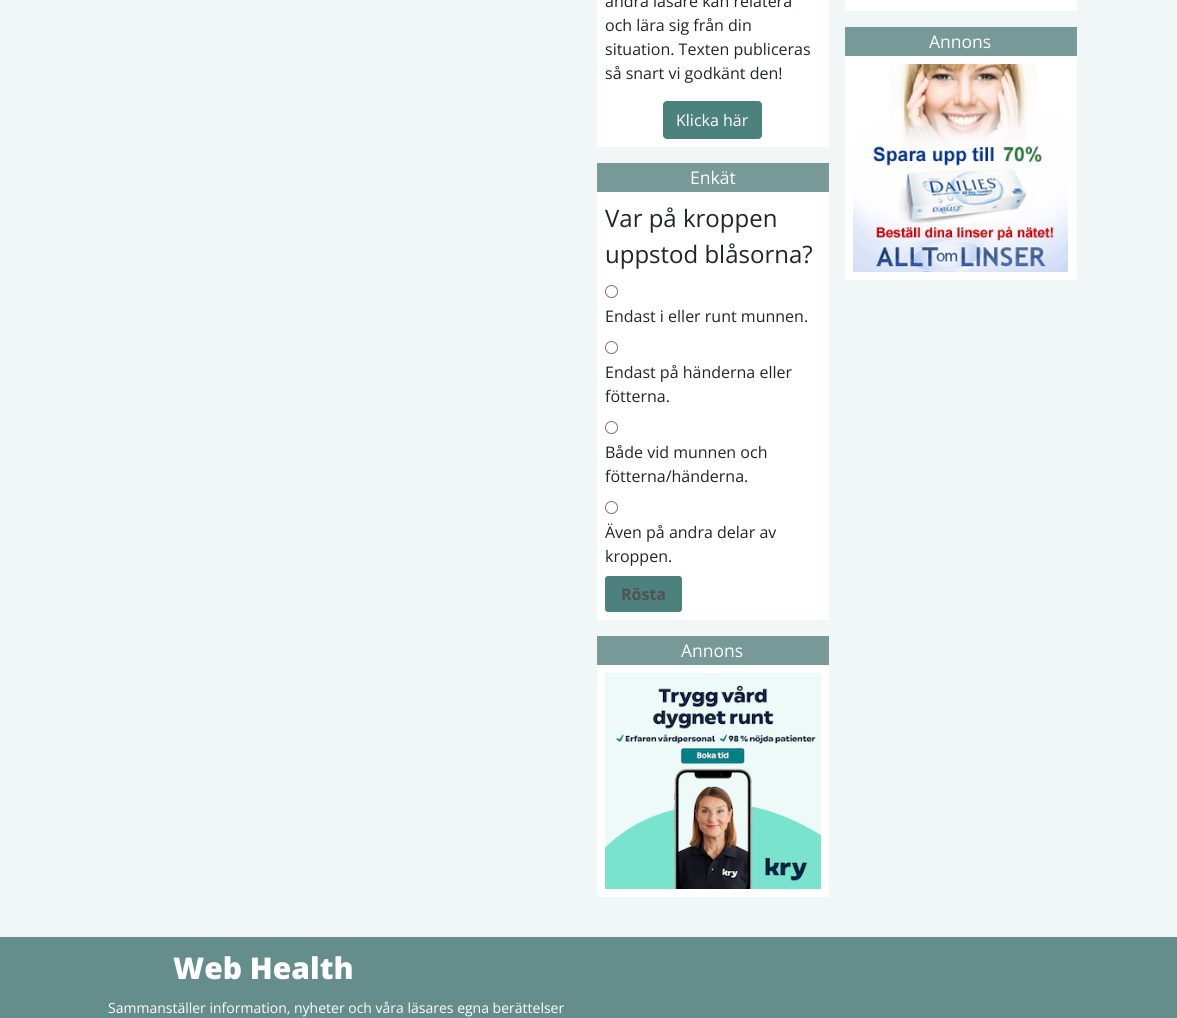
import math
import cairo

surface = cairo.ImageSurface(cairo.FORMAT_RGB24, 1177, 1018)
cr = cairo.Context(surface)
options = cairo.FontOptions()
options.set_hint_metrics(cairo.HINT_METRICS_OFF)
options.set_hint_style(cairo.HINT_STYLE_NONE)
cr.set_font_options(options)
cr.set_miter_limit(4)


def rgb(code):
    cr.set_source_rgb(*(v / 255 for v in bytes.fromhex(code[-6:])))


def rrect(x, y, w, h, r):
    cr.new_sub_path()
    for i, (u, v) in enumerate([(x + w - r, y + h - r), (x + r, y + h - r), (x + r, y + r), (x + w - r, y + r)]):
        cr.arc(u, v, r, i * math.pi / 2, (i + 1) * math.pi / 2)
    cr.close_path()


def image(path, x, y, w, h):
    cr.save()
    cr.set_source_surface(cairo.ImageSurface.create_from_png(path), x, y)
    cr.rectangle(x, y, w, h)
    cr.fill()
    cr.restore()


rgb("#f1f7f7")
cr.paint()
rgb("#ffffff")
cr.rectangle(597, 0, 232, 147)
cr.fill()
rgb("#4d817e")
rrect(663.5, 101.5, 98, 37, 3.5)
cr.fill_preserve()
cr.set_line_width(1)
cr.stroke()
rgb("#ffffff")
cr.rectangle(597, 192, 232, 428)
cr.fill()
rgb("#779997")
cr.rectangle(597, 163, 232, 29)
cr.fill()
cr.arc(611.5, 291.5, 6, 0, 2 * math.pi)
rgb("#767676")
cr.stroke()
cr.arc(611.5, 347.5, 6, 0, 2 * math.pi)
cr.stroke()
cr.arc(611.5, 427.5, 6, 0, 2 * math.pi)
cr.stroke()
cr.arc(611.5, 507.5, 6, 0, 2 * math.pi)
cr.stroke()
rgb("#4d817e")
rrect(605, 576, 77, 36, 3)
cr.fill()
rgb("#ffffff")
cr.rectangle(597, 665, 232, 232)
cr.fill()
rgb("#779997")
cr.rectangle(597, 636, 232, 29)
cr.fill()
image("img/1.png", 605, 673, 216, 216)
for x, y, w, h, color in [
    (845, 0, 232, 11, "#ffffff"),
    (845, 56, 232, 224, "#ffffff"),
    (845, 27, 232, 29, "#779997"),
]:
    rgb(color)
    cr.rectangle(x, y, w, h)
    cr.fill()
image("img/2.png", 853, 64, 215, 208)
rgb("#658d8b")
cr.rectangle(0, 937, 1177, 81)
cr.fill()
cr.select_font_face("Open Sans")
cr.set_font_size(16)
rgb("#212529")
for x, y, s in [
    (605, 7, "andra läsare kan relatera"),
    (605, 31, "och lära sig från din"),
    (605, 55, "situation. Texten publiceras"),
    (605, 79, "så snart vi godkänt den!"),
]:
    cr.move_to(x, y)
    cr.show_text(s)
rgb("#ffffff")
cr.move_to(676, 126)
cr.show_text("Klicka här")
cr.set_font_size(17.5)
cr.move_to(690, 184)
cr.show_text("Enkät")
cr.set_font_size(24)
rgb("#212529")
cr.move_to(605, 227)
cr.show_text("Var på kroppen")
cr.move_to(605, 263)
cr.show_text("uppstod blåsorna?")
cr.set_font_size(16)
for x, y, s in [
    (605, 322, "Endast i eller runt munnen."),
    (605, 378, "Endast på händerna eller"),
    (605, 402, "fötterna."),
    (605, 458, "Både vid munnen och"),
    (605, 482, "fötterna/händerna."),
    (605, 538, "Även på andra delar av"),
    (605, 562, "kroppen."),
]:
    cr.move_to(x, y)
    cr.show_text(s)
cr.select_font_face("Open Sans", cairo.FONT_SLANT_NORMAL, cairo.FONT_WEIGHT_BOLD)
rgb("#515151")
cr.move_to(621, 600)
cr.show_text("Rösta")
cr.select_font_face("Open Sans")
cr.set_font_size(17.5)
rgb("#ffffff")
cr.move_to(681, 657)
cr.show_text("Annons")
cr.move_to(929, 48)
cr.show_text("Annons")
cr.select_font_face("Open Sans ExtraBold")
cr.set_font_size(30)
cr.move_to(173, 979)
cr.show_text("Web Health")
cr.select_font_face("Open Sans")
cr.set_font_size(14)
cr.move_to(108, 1013)
cr.show_text("Sammanställer information, nyheter och våra läsares egna berättelser")
surface.write_to_png("page.png")
